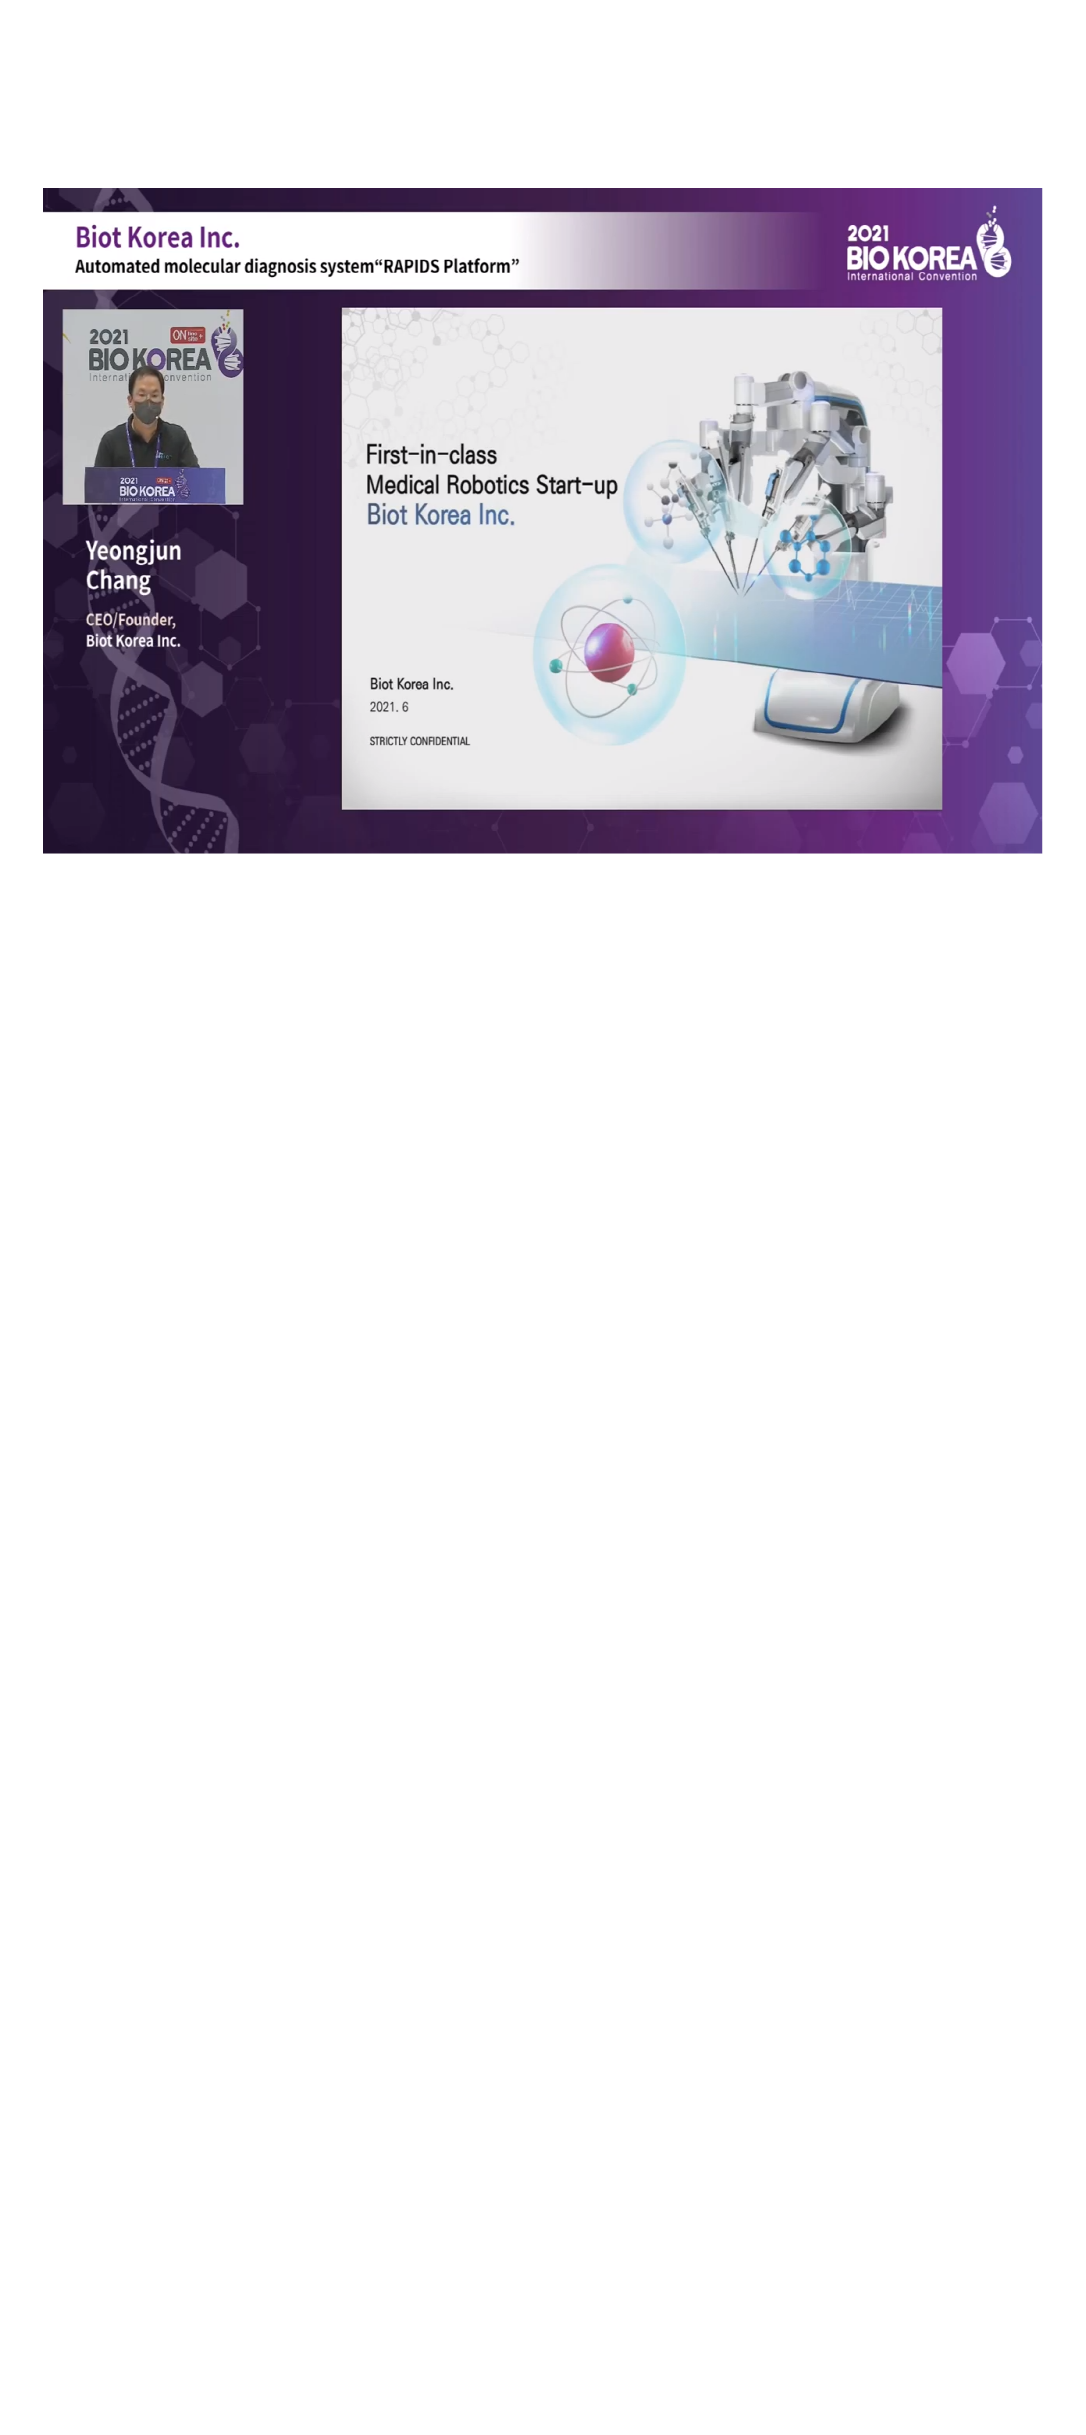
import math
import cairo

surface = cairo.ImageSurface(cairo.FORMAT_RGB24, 1086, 2435)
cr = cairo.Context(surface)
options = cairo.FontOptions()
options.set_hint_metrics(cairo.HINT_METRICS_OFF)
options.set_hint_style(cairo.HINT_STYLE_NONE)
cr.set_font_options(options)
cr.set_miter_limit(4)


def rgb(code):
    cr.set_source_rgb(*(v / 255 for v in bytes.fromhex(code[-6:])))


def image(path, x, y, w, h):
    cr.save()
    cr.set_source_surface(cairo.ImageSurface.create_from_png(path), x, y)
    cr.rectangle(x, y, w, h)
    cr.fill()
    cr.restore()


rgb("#ffffff")
cr.paint()
image("img/1.png", 43, 188, 1000, 666)
surface.write_to_png("page.png")
